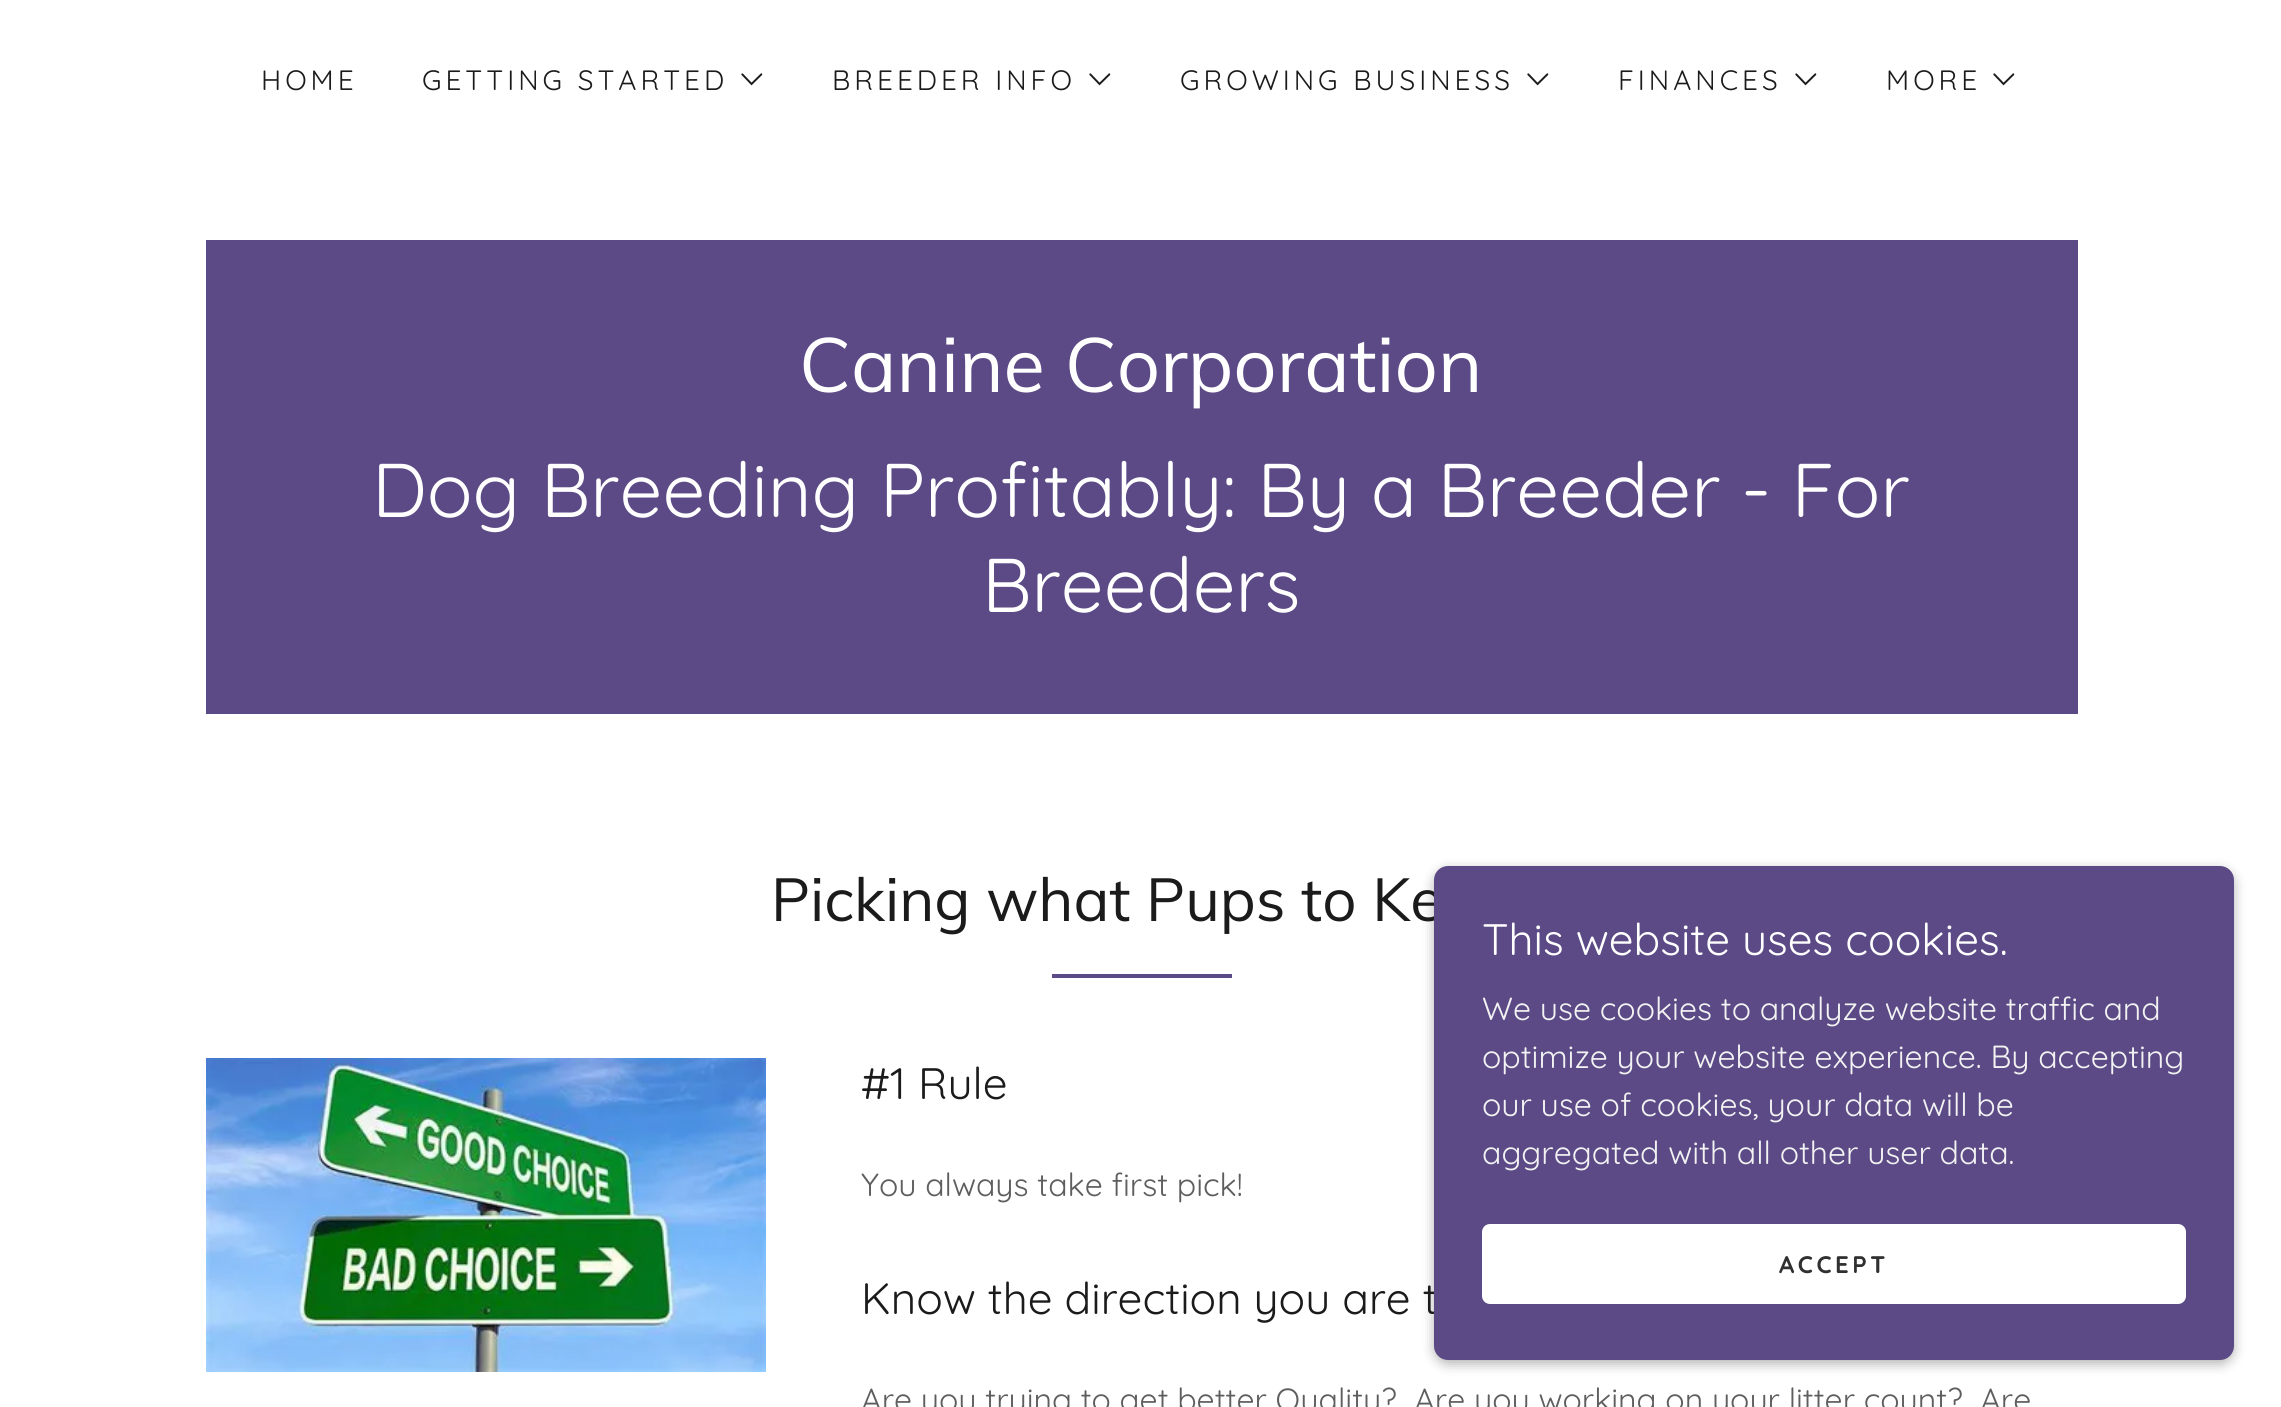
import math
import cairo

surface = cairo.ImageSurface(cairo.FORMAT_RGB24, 2281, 1407)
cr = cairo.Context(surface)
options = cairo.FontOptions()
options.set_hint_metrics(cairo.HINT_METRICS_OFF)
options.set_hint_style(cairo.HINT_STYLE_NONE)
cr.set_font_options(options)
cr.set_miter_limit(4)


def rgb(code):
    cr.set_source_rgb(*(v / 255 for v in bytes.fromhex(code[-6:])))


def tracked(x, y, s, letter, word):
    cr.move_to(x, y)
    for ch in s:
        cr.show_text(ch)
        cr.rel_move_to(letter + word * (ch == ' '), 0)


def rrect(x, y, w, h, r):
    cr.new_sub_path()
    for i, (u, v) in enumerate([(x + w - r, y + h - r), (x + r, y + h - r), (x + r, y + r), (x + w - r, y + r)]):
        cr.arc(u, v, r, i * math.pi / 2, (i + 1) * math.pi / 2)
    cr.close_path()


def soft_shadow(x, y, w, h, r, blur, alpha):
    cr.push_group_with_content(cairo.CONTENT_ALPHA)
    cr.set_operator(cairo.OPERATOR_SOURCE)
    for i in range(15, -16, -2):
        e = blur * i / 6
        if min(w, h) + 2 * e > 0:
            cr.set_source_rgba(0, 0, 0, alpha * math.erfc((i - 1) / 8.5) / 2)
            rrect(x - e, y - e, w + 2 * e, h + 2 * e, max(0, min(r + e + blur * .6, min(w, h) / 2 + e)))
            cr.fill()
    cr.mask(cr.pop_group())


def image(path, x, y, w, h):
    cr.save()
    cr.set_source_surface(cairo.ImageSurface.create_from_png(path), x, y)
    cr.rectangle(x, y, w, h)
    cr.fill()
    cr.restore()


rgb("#ffffff")
cr.paint()
image("img/1.png", 741, 73, 22, 13)
image("img/1.png", 1089, 73, 22, 13)
image("img/1.png", 1527, 73, 22, 13)
image("img/1.png", 1795, 73, 22, 13)
image("img/1.png", 1993, 73, 22, 13)
rgb("#5b4a85")
cr.rectangle(206, 240, 1872, 474)
cr.fill()
cr.rectangle(1052, 974, 180, 4)
cr.fill()
image("img/2.png", 206, 1058, 560, 314)
rgb("#000000")
soft_shadow(1434, 870, 800, 494, 14, 6, 0.3)
cr.select_font_face("Quicksand")
cr.set_font_size(28)
rgb("#1b1b1b")
for x, y, s in [
    (261, 90, "HOME"),
    (422, 90, "GETTING STARTED"),
    (832, 90, "BREEDER INFO"),
    (1180, 90, "GROWING BUSINESS"),
    (1618, 90, "FINANCES"),
    (1886, 90, "MORE"),
]:
    tracked(x, y, s, 4, 0)
cr.select_font_face("Muli")
cr.set_font_size(76)
rgb("#ffffff")
cr.move_to(799, 392)
cr.show_text("Canine Corporation")
cr.select_font_face("Quicksand")
cr.move_to(372, 517)
cr.show_text("Dog Breeding Profitably: By a Breeder - For")
cr.move_to(982, 612)
cr.show_text("Breeders")
cr.select_font_face("Muli")
cr.set_font_size(60)
rgb("#1b1b1b")
cr.move_to(771, 921)
cr.show_text("Picking what Pups to Ke")
cr.select_font_face("Quicksand")
cr.set_font_size(44)
cr.move_to(861, 1099)
cr.show_text("#1 Rule")
cr.set_font_size(32)
rgb("#5e5e5e")
cr.move_to(861, 1196)
cr.show_text("You always take first pick!")
cr.set_font_size(44)
rgb("#1b1b1b")
cr.move_to(861, 1314)
cr.show_text("Know the direction you are t")
cr.set_font_size(32)
rgb("#5e5e5e")
cr.move_to(861, 1411)
cr.show_text("Are you trying to get better Quality?  Are you working on your litter count?  Are")
rgb("#5b4a85")
rrect(1434, 866, 800, 494, 14)
cr.fill()
cr.set_font_size(44)
rgb("#ffffff")
cr.move_to(1482, 955)
cr.show_text("This website uses cookies.")
cr.set_font_size(32)
rgb("#f2f2f3")
for x, y, s in [
    (1482, 1020, "We use cookies to analyze website traffic and"),
    (1482, 1068, "optimize your website experience. By accepting"),
    (1482, 1116, "our use of cookies, your data will be"),
    (1482, 1164, "aggregated with all other user data."),
]:
    cr.move_to(x, y)
    cr.show_text(s)
rgb("#ffffff")
rrect(1482, 1224, 704, 80, 8)
cr.fill()
cr.select_font_face("Quicksand", cairo.FONT_SLANT_NORMAL, cairo.FONT_WEIGHT_BOLD)
cr.set_font_size(24)
rgb("#303030")
tracked(1779, 1273, "ACCEPT", 3.5, 0)
surface.write_to_png("page.png")
